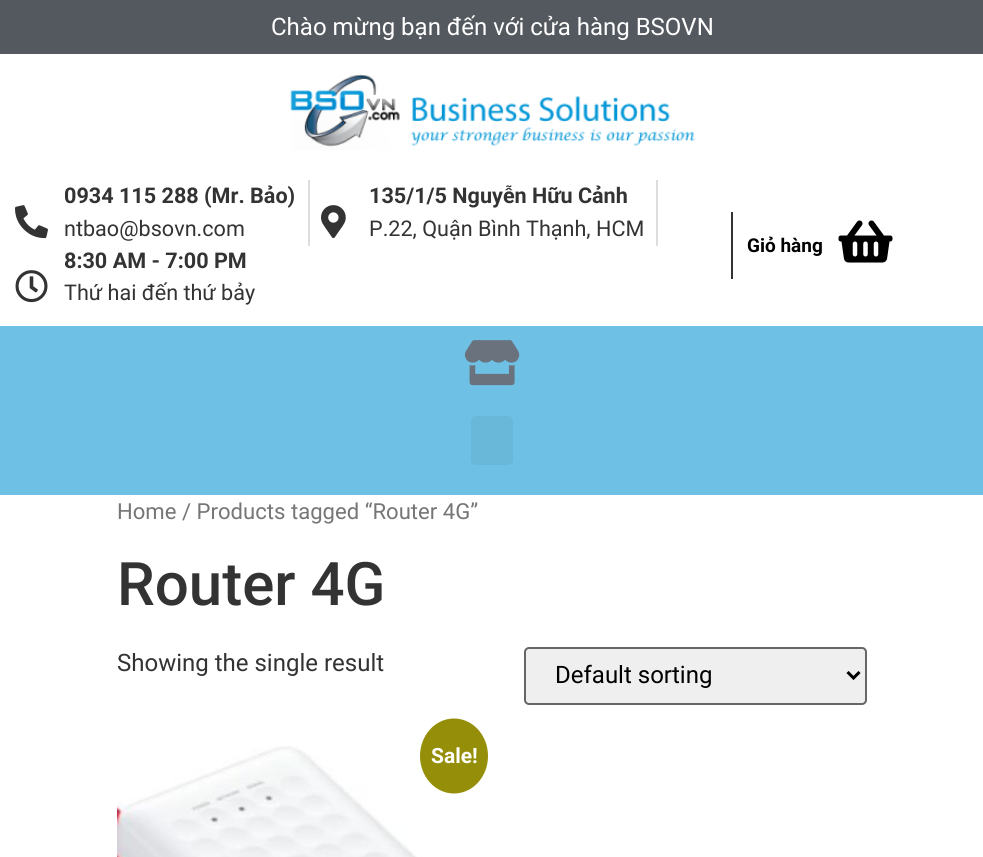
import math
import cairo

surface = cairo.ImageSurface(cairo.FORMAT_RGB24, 983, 857)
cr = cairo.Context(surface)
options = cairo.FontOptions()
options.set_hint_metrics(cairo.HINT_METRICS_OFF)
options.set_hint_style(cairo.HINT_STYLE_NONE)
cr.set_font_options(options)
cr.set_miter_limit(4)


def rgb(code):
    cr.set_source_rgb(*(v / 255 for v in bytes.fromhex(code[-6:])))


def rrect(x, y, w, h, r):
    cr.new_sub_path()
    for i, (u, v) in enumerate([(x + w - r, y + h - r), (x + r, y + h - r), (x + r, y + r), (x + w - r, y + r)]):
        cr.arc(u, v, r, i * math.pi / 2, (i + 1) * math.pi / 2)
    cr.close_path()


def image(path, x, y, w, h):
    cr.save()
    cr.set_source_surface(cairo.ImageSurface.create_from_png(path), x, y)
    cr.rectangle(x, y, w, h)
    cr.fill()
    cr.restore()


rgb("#ffffff")
cr.paint()
rgb("#54595f")
cr.rectangle(0, 0, 983, 54)
cr.fill()
image("img/1.png", 290, 74, 406, 76)
image("img/2.png", 15, 205, 33, 34)
rgb("#dddddd")
cr.rectangle(308, 180, 2, 66)
cr.fill()
image("img/3.png", 321, 205, 25, 34)
cr.rectangle(656, 180, 2, 66)
cr.fill()
image("img/4.png", 15, 270, 33, 33)
rgb("#333333")
cr.rectangle(731, 212, 2, 67)
cr.fill()
image("img/5.png", 838, 220, 55, 43)
rgb("#6ec1e4")
cr.rectangle(0, 326, 983, 169)
cr.fill()
image("img/6.png", 465, 340, 55, 46)
rgb("#69b7d9")
rrect(471, 416, 42, 49, 5)
cr.fill()
rgb("#efefef")
rrect(525, 648, 341, 56, 4)
cr.fill_preserve()
rgb("#666666")
cr.stroke()
cr.new_path()
cr.move_to(847.5, 672)
cr.line_to(853.5, 678)
cr.line_to(859.5, 672)
rgb("#000000")
cr.set_line_width(3)
cr.stroke()
image("img/7.png", 117, 746, 300, 111)
rgb("#958e09")
cr.new_path()
cr.move_to(454, 718.5)
cr.curve_to(473, 718.5, 488, 735.5, 488, 756)
cr.curve_to(488, 776.5, 473, 793.5, 454, 793.5)
cr.curve_to(435, 793.5, 420, 776.5, 420, 756)
cr.curve_to(420, 735.5, 435, 718.5, 454, 718.5)
cr.close_path()
cr.fill()
cr.select_font_face("Roboto")
cr.set_font_size(24)
rgb("#ffffff")
cr.move_to(271, 35)
cr.show_text("Chào mừng bạn đến với cửa hàng BSOVN")
cr.select_font_face("Roboto", cairo.FONT_SLANT_NORMAL, cairo.FONT_WEIGHT_BOLD)
cr.set_font_size(21.6)
rgb("#333333")
cr.move_to(64, 203)
cr.show_text("0934 115 288 (Mr. Bảo)")
cr.select_font_face("Roboto")
cr.move_to(64, 236)
cr.show_text("ntbao@bsovn.com")
cr.select_font_face("Roboto", cairo.FONT_SLANT_NORMAL, cairo.FONT_WEIGHT_BOLD)
cr.move_to(369, 203)
cr.show_text("135/1/5 Nguyễn Hữu Cảnh")
cr.select_font_face("Roboto")
cr.move_to(369, 236)
cr.show_text("P.22, Quận Bình Thạnh, HCM")
cr.select_font_face("Roboto", cairo.FONT_SLANT_NORMAL, cairo.FONT_WEIGHT_BOLD)
cr.move_to(64, 268)
cr.show_text("8:30 AM - 7:00 PM")
cr.select_font_face("Roboto")
cr.move_to(64, 300)
cr.show_text("Thứ hai đến thứ bảy")
cr.select_font_face("Roboto", cairo.FONT_SLANT_NORMAL, cairo.FONT_WEIGHT_BOLD)
cr.set_font_size(19)
rgb("#000000")
cr.move_to(747, 252)
cr.show_text("Giỏ hàng")
cr.select_font_face("Roboto")
cr.set_font_size(22.1)
rgb("#767676")
cr.move_to(117, 519)
cr.show_text("Home / Products tagged “Router 4G”")
cr.select_font_face("Roboto Medium")
cr.set_font_size(60)
rgb("#333333")
cr.move_to(117, 605)
cr.show_text("Router 4G")
cr.select_font_face("Roboto")
cr.set_font_size(24)
cr.move_to(117, 671)
cr.show_text("Showing the single result")
rgb("#000000")
cr.move_to(555, 683)
cr.show_text("Default sorting")
cr.select_font_face("Roboto", cairo.FONT_SLANT_NORMAL, cairo.FONT_WEIGHT_BOLD)
cr.set_font_size(21)
rgb("#ffffff")
cr.move_to(431, 763)
cr.show_text("Sale!")
surface.write_to_png("page.png")
